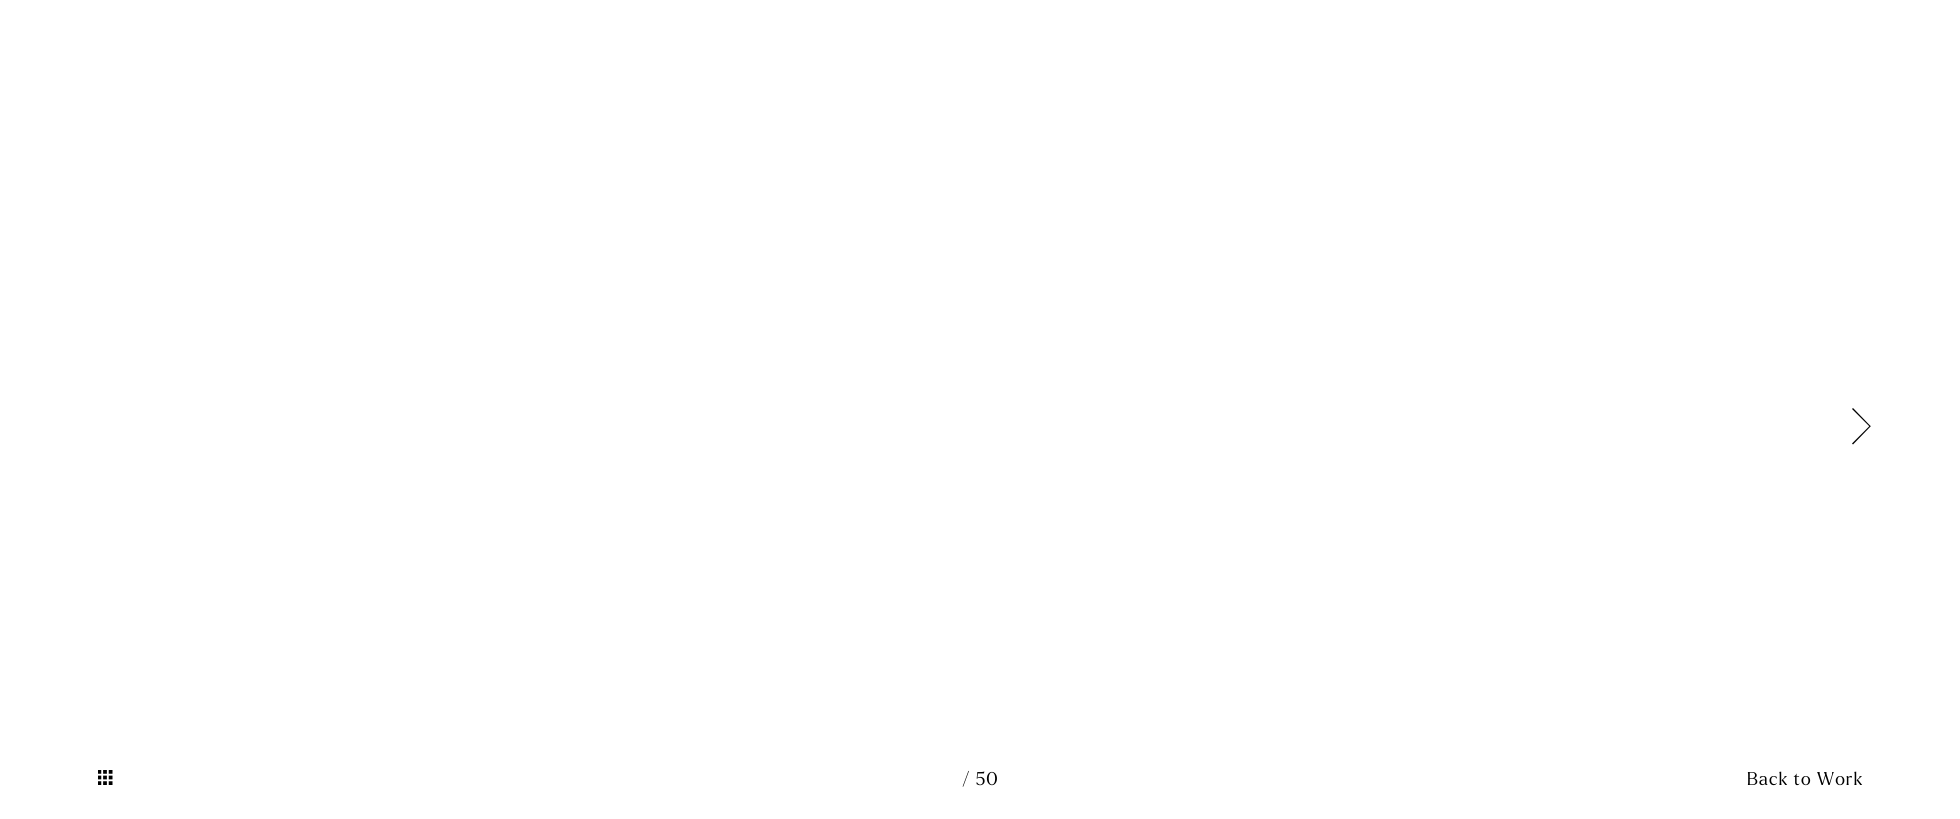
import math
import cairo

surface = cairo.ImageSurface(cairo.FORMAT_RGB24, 1960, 819)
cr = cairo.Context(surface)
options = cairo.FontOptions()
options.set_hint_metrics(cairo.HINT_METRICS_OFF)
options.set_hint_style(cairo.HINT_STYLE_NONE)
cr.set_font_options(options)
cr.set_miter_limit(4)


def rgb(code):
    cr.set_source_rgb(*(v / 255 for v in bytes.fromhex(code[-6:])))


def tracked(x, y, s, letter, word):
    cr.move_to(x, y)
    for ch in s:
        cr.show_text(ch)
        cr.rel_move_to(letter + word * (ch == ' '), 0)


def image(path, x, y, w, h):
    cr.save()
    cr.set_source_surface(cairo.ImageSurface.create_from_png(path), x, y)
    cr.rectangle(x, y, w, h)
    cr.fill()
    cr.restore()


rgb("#ffffff")
cr.paint()
rgb("#000000")
cr.new_path()
cr.move_to(1870.5, 426.5)
cr.line_to(1853, 444.5)
cr.line_to(1852, 443.5)
cr.line_to(1870, 425.5)
cr.close_path()
cr.fill()
cr.new_path()
cr.move_to(1853, 408)
cr.line_to(1870.5, 426)
cr.line_to(1870, 427)
cr.line_to(1852, 409)
cr.close_path()
cr.fill()
image("img/1.png", 98, 770, 15, 15)
cr.select_font_face("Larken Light")
cr.set_font_size(18)
tracked(962, 785, "/ 50", 1, 0)
tracked(1747, 785, "Back to Work", 1, 0)
surface.write_to_png("page.png")
